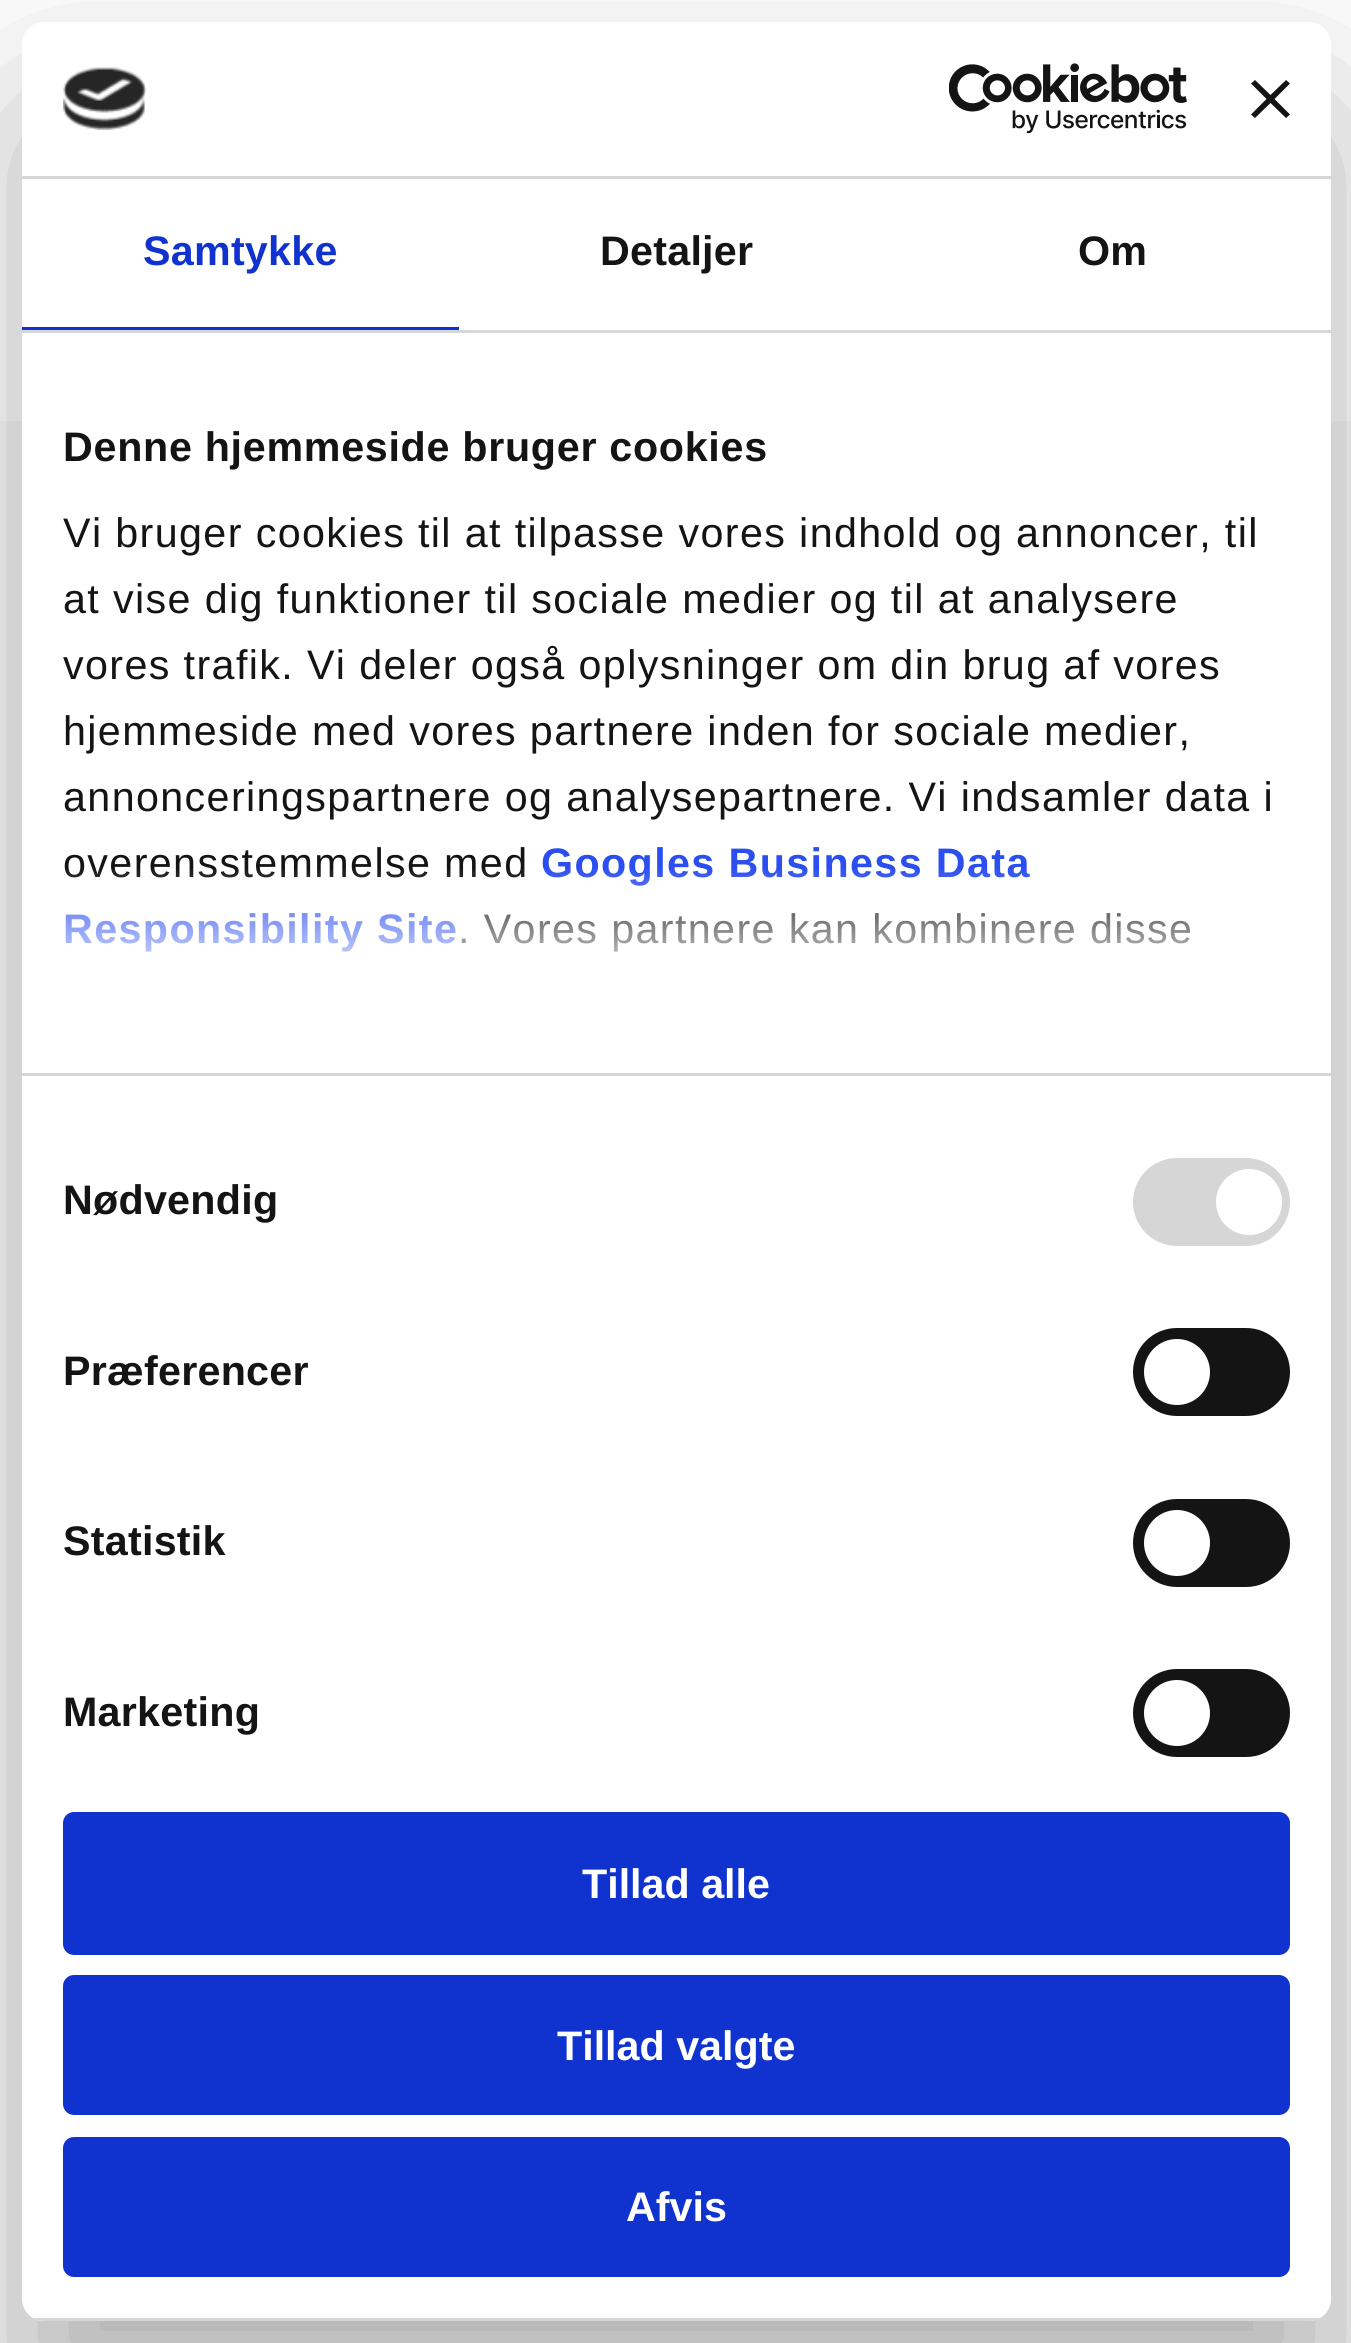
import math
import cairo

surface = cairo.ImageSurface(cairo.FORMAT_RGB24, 1351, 2343)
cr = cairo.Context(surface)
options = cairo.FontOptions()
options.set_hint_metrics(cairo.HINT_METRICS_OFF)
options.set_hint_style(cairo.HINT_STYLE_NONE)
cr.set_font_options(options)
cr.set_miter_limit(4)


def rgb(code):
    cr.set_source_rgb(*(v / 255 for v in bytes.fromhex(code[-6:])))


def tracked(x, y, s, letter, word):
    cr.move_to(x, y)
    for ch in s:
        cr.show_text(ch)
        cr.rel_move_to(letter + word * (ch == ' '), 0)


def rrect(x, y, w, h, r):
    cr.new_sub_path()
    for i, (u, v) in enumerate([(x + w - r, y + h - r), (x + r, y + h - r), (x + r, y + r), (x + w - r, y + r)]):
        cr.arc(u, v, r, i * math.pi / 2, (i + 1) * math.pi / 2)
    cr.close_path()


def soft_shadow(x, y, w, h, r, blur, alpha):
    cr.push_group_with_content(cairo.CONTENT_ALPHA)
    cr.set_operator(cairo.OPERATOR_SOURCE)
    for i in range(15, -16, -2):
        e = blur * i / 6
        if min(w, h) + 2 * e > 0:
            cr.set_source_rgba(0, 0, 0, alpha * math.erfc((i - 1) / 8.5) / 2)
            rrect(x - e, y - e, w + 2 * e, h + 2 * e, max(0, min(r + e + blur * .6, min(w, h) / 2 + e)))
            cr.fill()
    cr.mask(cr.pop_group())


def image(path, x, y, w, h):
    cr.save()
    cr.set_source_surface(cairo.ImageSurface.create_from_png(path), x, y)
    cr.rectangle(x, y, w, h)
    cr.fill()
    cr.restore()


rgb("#ffffff")
cr.paint()
rgb("#f8f8f8")
cr.rectangle(0, 421, 1351, 1922)
cr.fill()
rgb("#000000")
soft_shadow(22, 110, 1309, 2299, 22, 93.5, 0.3)
rgb("#ffffff")
rrect(22, 22, 1309, 2299, 22)
cr.fill()
rgb("#d6d6d6")
cr.rectangle(22, 176, 1309, 3)
cr.fill()
image("img/1.png", 63, 67, 83, 63)
image("img/2.png", 949, 63, 238, 71)
rgb("#141414")
cr.new_path()
cr.move_to(1290, 83.5)
cr.line_to(1286, 80)
cr.line_to(1270.5, 95)
cr.line_to(1255, 80)
cr.line_to(1251, 83.5)
cr.line_to(1266.5, 99)
cr.line_to(1251, 114.5)
cr.line_to(1255, 118)
cr.line_to(1270.5, 103)
cr.line_to(1286, 118)
cr.line_to(1290, 114.5)
cr.line_to(1274.5, 99)
cr.close_path()
cr.fill()
for x, y, w, h, color in [
    (22, 330, 1309, 3, "#d6d6d6"),
    (22, 327, 437, 3, "#1032cf"),
    (22, 1073, 1309, 3, "#d6d6d6"),
]:
    rgb(color)
    cr.rectangle(x, y, w, h)
    cr.fill()
rrect(1133, 1158, 157, 88, 44)
cr.fill()
rgb("#ffffff")
cr.arc(1249, 1202, 33, 0, 2 * math.pi)
cr.fill()
rgb("#141414")
rrect(1133, 1328, 157, 88, 44)
cr.fill()
rgb("#ffffff")
cr.arc(1177, 1372, 33, 0, 2 * math.pi)
cr.fill()
rgb("#141414")
rrect(1133, 1499, 157, 88, 44)
cr.fill()
rgb("#ffffff")
cr.arc(1177, 1543, 33, 0, 2 * math.pi)
cr.fill()
rgb("#141414")
rrect(1133, 1669, 157, 88, 44)
cr.fill()
rgb("#ffffff")
cr.arc(1177, 1713, 33, 0, 2 * math.pi)
cr.fill()
cr.save()
rrect(22, 22, 1309, 2299, 22)
cr.clip()
rgb("#d6d6d6")
cr.rectangle(33, 2318, 1287, 3)
cr.fill()
cr.restore()
rgb("#1032cf")
rrect(66, 1815, 1221, 137, 8)
cr.fill_preserve()
cr.set_line_width(6)
cr.stroke()
rrect(66, 1978, 1221, 134, 8)
cr.fill_preserve()
cr.stroke()
rrect(66, 2140, 1221, 134, 8)
cr.fill_preserve()
cr.stroke()
cr.select_font_face("Liberation Sans", cairo.FONT_SLANT_NORMAL, cairo.FONT_WEIGHT_BOLD)
cr.set_font_size(41.25)
tracked(143, 265, "Samtykke", 0.25, 0)
rgb("#141414")
tracked(600, 265, "Detaljer", 0.25, 0)
tracked(1078, 265, "Om", 0.25, 0)
tracked(63, 461, "Denne hjemmeside bruger cookies", 0.7, 0)
cr.select_font_face("Liberation Sans")
for x, y, s in [
    (63, 547, "Vi bruger cookies til at tilpasse vores indhold og annoncer, til"),
    (63, 613, "at vise dig funktioner til sociale medier og til at analysere"),
    (63, 679, "vores trafik. Vi deler også oplysninger om din brug af vores"),
    (63, 745, "hjemmeside med vores partnere inden for sociale medier,"),
    (63, 811, "annonceringspartnere og analysepartnere. Vi indsamler data i"),
    (63, 877, "overensstemmelse med"),
]:
    tracked(x, y, s, 1.38, 0)
cr.select_font_face("Liberation Sans", cairo.FONT_SLANT_NORMAL, cairo.FONT_WEIGHT_BOLD)
rgb("#2a4eef")
tracked(541, 877, "Googles Business Data", 1.38, 0)
tracked(63, 943, "Responsibility Site", 1.38, 0)
cr.select_font_face("Liberation Sans")
rgb("#141414")
tracked(458, 943, ". Vores partnere kan kombinere disse", 1.38, 0)
gradient = cairo.LinearGradient(659, 1073, 659, 866)
gradient.add_color_stop_rgba(0, 1, 1, 1, 1)
gradient.add_color_stop_rgba(0.5, 1, 1, 1, 0.8)
gradient.add_color_stop_rgba(1, 1, 1, 1, 0)
cr.set_source(gradient)
cr.rectangle(65, 869, 1126, 83)
cr.fill()
cr.select_font_face("Liberation Sans", cairo.FONT_SLANT_NORMAL, cairo.FONT_WEIGHT_BOLD)
rgb("#141414")
for x, y, s in [
    (63, 1214, "Nødvendig"),
    (63, 1385, "Præferencer"),
    (63, 1555, "Statistik"),
    (63, 1726, "Marketing"),
]:
    tracked(x, y, s, 0.25, 0)
rgb("#ffffff")
for x, y, s in [
    (582, 1898, "Tillad alle"),
    (557, 2060, "Tillad valgte"),
    (626, 2221, "Afvis"),
]:
    cr.move_to(x, y)
    cr.show_text(s)
surface.write_to_png("page.png")
